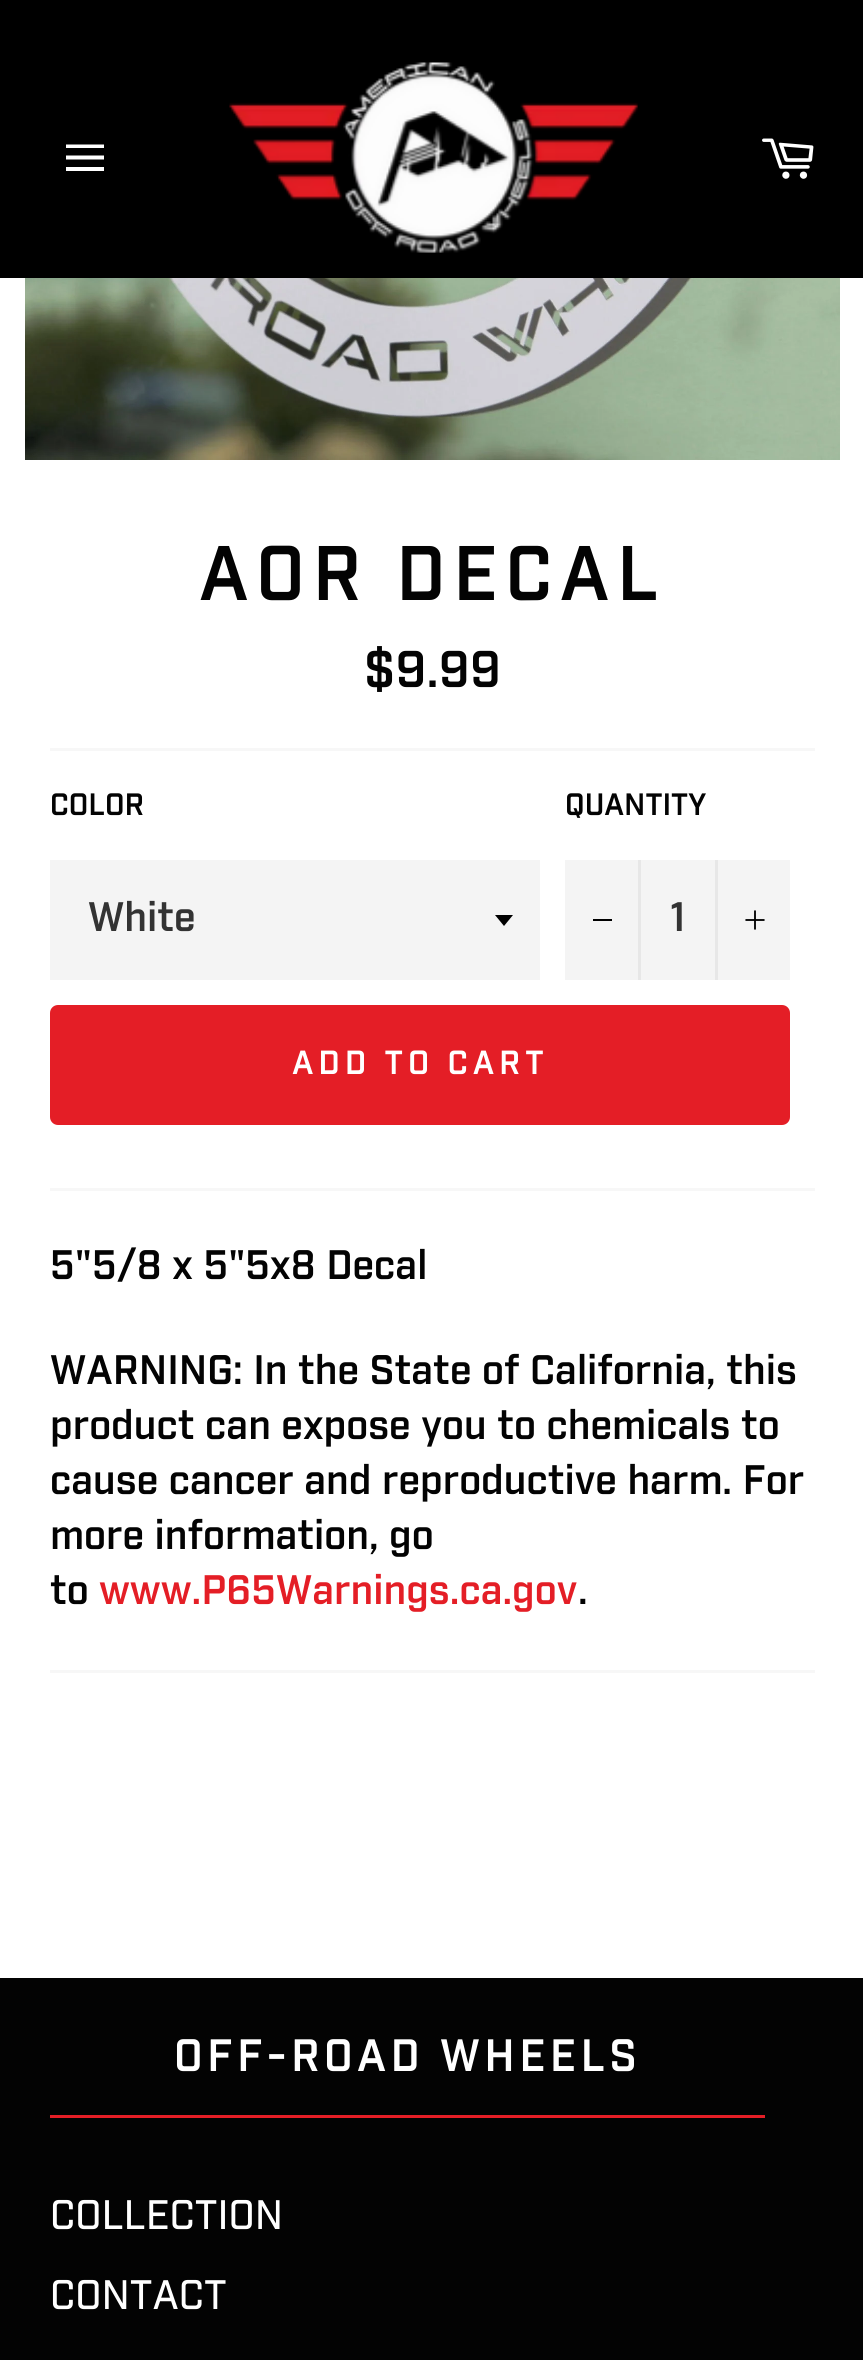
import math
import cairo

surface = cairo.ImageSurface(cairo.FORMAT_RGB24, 863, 2360)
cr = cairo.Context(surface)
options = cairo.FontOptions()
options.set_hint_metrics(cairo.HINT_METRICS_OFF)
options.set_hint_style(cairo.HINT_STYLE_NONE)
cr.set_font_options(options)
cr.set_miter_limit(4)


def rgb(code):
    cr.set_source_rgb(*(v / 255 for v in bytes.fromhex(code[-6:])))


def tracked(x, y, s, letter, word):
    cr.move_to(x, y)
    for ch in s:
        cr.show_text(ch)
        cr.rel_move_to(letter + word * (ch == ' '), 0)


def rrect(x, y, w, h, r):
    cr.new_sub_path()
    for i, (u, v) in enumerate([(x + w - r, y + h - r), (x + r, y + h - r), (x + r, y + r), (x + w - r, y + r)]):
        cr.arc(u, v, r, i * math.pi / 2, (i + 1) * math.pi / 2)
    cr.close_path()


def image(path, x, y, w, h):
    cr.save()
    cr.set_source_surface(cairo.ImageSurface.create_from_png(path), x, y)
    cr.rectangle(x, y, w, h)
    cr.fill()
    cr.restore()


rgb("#ffffff")
cr.paint()
rgb("#000000")
cr.rectangle(0, 0, 863, 278)
cr.fill()
rgb("#ffffff")
cr.new_path()
cr.move_to(66, 155.5)
cr.line_to(104, 155.5)
cr.line_to(104, 159.5)
cr.line_to(66, 159.5)
cr.close_path()
cr.move_to(66, 144.5)
cr.line_to(104, 144.5)
cr.line_to(104, 148)
cr.line_to(66, 148)
cr.close_path()
cr.move_to(66, 167)
cr.line_to(104, 167)
cr.line_to(104, 171)
cr.line_to(66, 171)
cr.close_path()
cr.fill()
image("img/1.png", 229, 62, 409, 191)
image("img/2.png", 762, 138, 52, 41)
image("img/3.png", 25, 278, 815, 182)
rgb("#f7f7f7")
cr.rectangle(50, 748, 765, 3)
cr.fill()
rgb("#f4f4f4")
cr.rectangle(50, 860, 490, 120)
cr.fill()
rgb("#000000")
cr.new_path()
cr.move_to(495, 915)
cr.line_to(504, 926)
cr.line_to(513, 915)
cr.close_path()
cr.fill()
for x, y, w, h, color in [
    (565, 860, 225, 120, "#f4f4f4"),
    (638, 860, 3, 120, "#e7e7e7"),
    (593, 919, 19, 2, "#000000"),
    (715, 860, 3, 120, "#e7e7e7"),
]:
    rgb(color)
    cr.rectangle(x, y, w, h)
    cr.fill()
image("img/4.png", 745, 910, 20, 20)
rgb("#e41e26")
rrect(50, 1005, 740, 120, 8)
cr.fill()
for x, y, w, h, color in [
    (50, 1188, 765, 3, "#f7f7f7"),
    (50, 1670, 765, 3, "#f7f7f7"),
    (0, 1978, 863, 382, "#030303"),
    (50, 2115, 715, 3, "#e41e26"),
]:
    rgb(color)
    cr.rectangle(x, y, w, h)
    cr.fill()
cr.select_font_face("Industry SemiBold")
cr.set_font_size(75)
rgb("#030303")
tracked(199, 600, "AOR DECAL", 7.5, 0)
cr.set_font_size(50)
cr.move_to(364, 687)
cr.show_text("$9.99")
cr.set_font_size(30)
cr.move_to(50, 815)
cr.show_text("COLOR")
cr.set_font_size(40)
rgb("#333333")
cr.move_to(88, 931)
cr.show_text("White")
cr.set_font_size(30)
rgb("#030303")
cr.move_to(565, 815)
cr.show_text("QUANTITY")
cr.set_font_size(40)
rgb("#333333")
cr.move_to(670, 931)
cr.show_text("1")
cr.set_font_size(32.5)
rgb("#ffffff")
tracked(292, 1074, "ADD TO CART", 4.9, 0)
cr.set_font_size(40)
rgb("#030303")
for x, y, s in [
    (50, 1279, "5\"5/8 x 5\"5x8 Decal"),
    (50, 1384, "WARNING: In the State of California, this"),
    (50, 1439, "product can expose you to chemicals to"),
    (50, 1494, "cause cancer and reproductive harm. For"),
    (50, 1549, "more information, go"),
    (50, 1604, "to"),
]:
    cr.move_to(x, y)
    cr.show_text(s)
rgb("#e41e26")
cr.move_to(99, 1604)
cr.show_text("www.P65Warnings.ca.gov")
rgb("#030303")
cr.move_to(578, 1604)
cr.show_text(".")
cr.set_font_size(44)
rgb("#ffffff")
tracked(174, 2071, "OFF-ROAD WHEELS", 4.4, 0)
cr.select_font_face("Industry Medium")
cr.set_font_size(40)
cr.move_to(50, 2229)
cr.show_text("COLLECTION")
cr.move_to(50, 2309)
cr.show_text("CONTACT")
surface.write_to_png("page.png")
